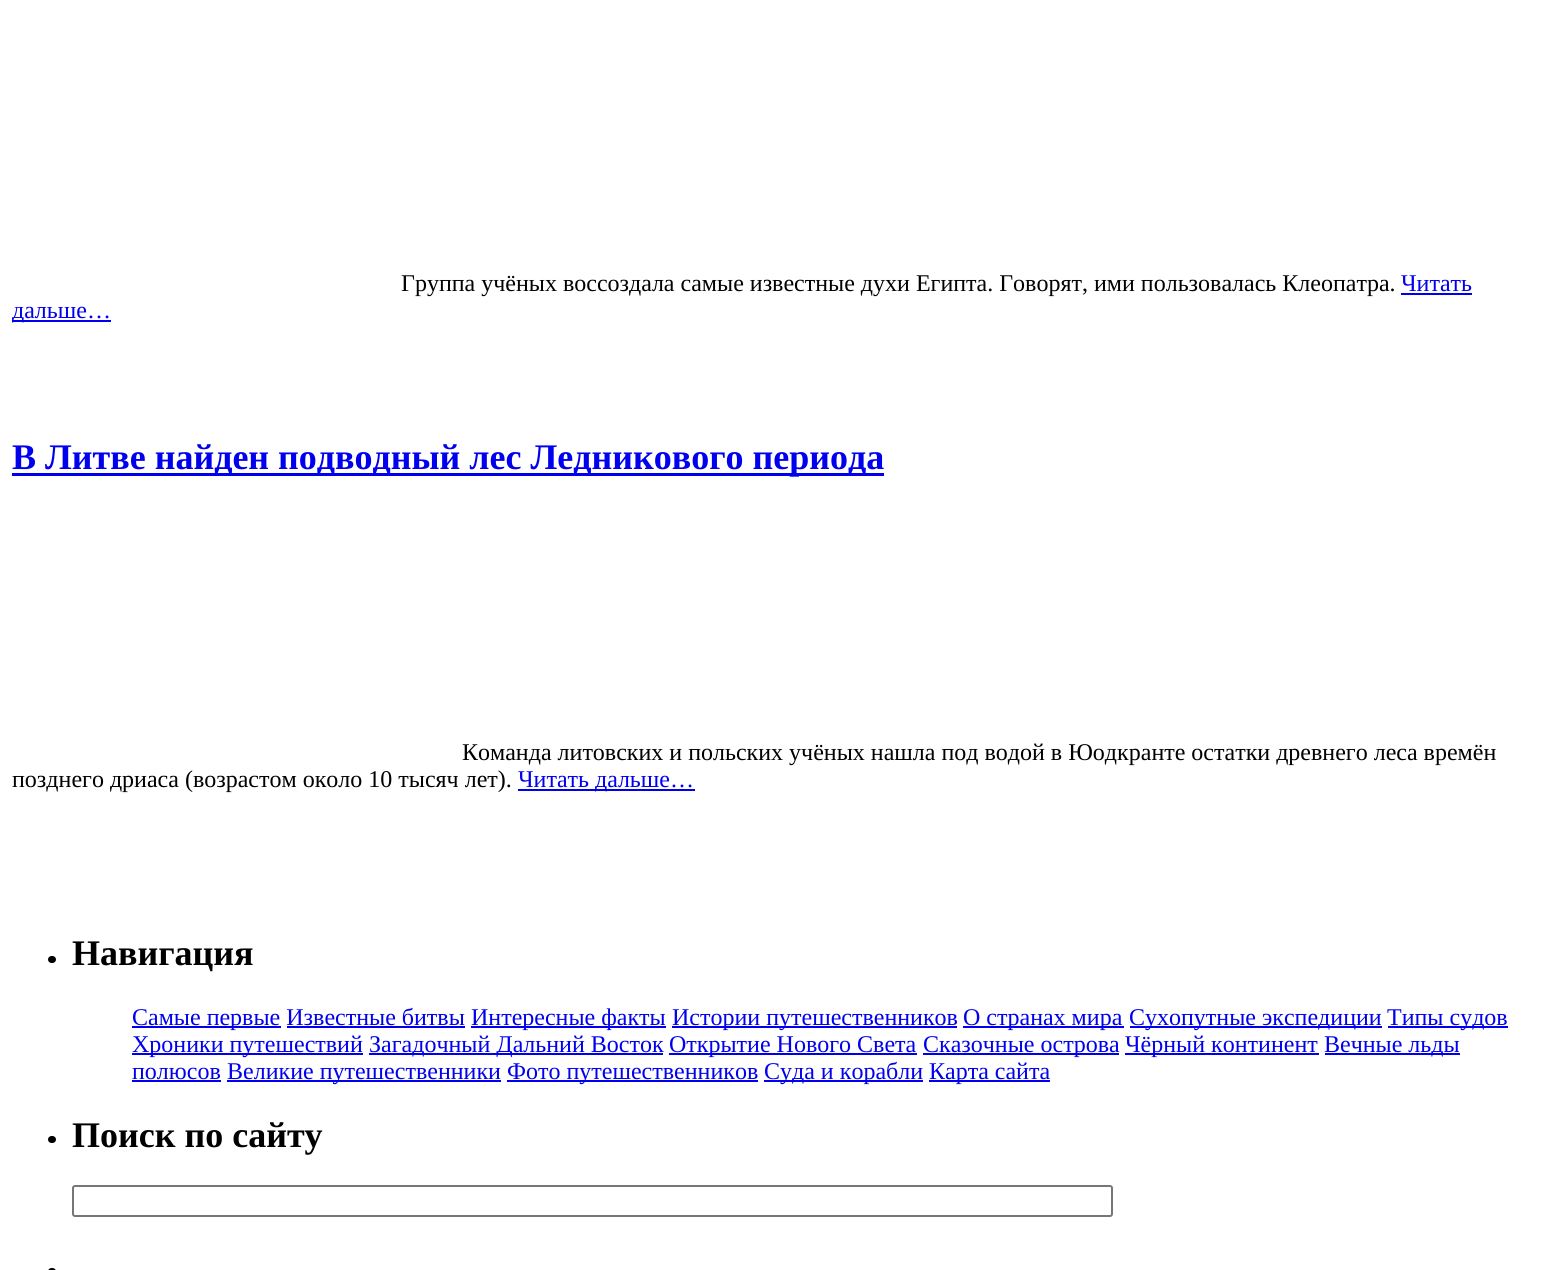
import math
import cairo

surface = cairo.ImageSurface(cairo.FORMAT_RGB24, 1553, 1270)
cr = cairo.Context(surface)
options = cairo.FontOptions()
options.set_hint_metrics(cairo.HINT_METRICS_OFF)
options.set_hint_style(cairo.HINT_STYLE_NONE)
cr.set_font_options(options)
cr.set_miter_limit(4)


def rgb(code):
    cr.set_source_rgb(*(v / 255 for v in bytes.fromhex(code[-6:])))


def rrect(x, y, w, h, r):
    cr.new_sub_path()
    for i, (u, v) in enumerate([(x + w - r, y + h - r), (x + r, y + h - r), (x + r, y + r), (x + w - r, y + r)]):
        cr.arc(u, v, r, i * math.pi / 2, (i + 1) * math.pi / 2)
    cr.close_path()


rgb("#ffffff")
cr.paint()
for x, y, w, h, color in [
    (1401, 293, 71, 2, "#0000ee"),
    (12, 320, 99, 2, "#0000ee"),
    (12, 473, 872, 3, "#0000ee"),
    (518, 789, 177, 2, "#0000ee"),
]:
    rgb(color)
    cr.rectangle(x, y, w, h)
    cr.fill()
rgb("#000000")
rrect(48, 956, 8, 7, 3.5)
cr.fill()
for x, y, w, h, color in [
    (132, 1026, 149, 2, "#0000ee"),
    (471, 1026, 195, 2, "#0000ee"),
    (672, 1026, 285, 2, "#0000ee"),
    (963, 1026, 161, 2, "#0000ee"),
    (1130, 1026, 252, 2, "#0000ee"),
    (1388, 1026, 120, 2, "#0000ee"),
    (287, 1026, 178, 2, "#0000ee"),
    (132, 1053, 231, 2, "#0000ee"),
    (369, 1053, 294, 2, "#0000ee"),
    (669, 1053, 248, 2, "#0000ee"),
    (923, 1053, 196, 2, "#0000ee"),
    (1125, 1053, 194, 2, "#0000ee"),
    (1325, 1053, 135, 2, "#0000ee"),
    (132, 1080, 89, 2, "#0000ee"),
    (227, 1080, 274, 2, "#0000ee"),
    (507, 1080, 251, 2, "#0000ee"),
    (764, 1080, 159, 2, "#0000ee"),
    (929, 1080, 121, 2, "#0000ee"),
]:
    rgb(color)
    cr.rectangle(x, y, w, h)
    cr.fill()
rgb("#000000")
rrect(48, 1136, 8, 7, 3.5)
cr.fill()
rrect(73, 1186, 1039, 30, 2)
rgb("#767676")
cr.stroke()
rgb("#000000")
rrect(48, 1268, 8, 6, 3.5)
cr.fill()
cr.select_font_face("Liberation Serif")
cr.set_font_size(24)
cr.move_to(401, 291)
cr.show_text("Группа учёных воссоздала самые известные духи Египта. Говорят, ими пользовалась Клеопатра.")
rgb("#0000ee")
cr.move_to(1401, 291)
cr.show_text("Читать")
cr.move_to(12, 318)
cr.show_text("дальше…")
cr.select_font_face("Liberation Serif", cairo.FONT_SLANT_NORMAL, cairo.FONT_WEIGHT_BOLD)
cr.set_font_size(36)
cr.move_to(12, 469)
cr.show_text("В Литве найден подводный лес Ледникового периода")
cr.select_font_face("Liberation Serif")
cr.set_font_size(24)
rgb("#000000")
cr.move_to(462, 760)
cr.show_text("Команда литовских и польских учёных нашла под водой в Юодкранте остатки древнего леса времён")
cr.move_to(12, 787)
cr.show_text("позднего дриаса (возрастом около 10 тысяч лет).")
rgb("#0000ee")
cr.move_to(518, 787)
cr.show_text("Читать дальше…")
cr.select_font_face("Liberation Serif", cairo.FONT_SLANT_NORMAL, cairo.FONT_WEIGHT_BOLD)
cr.set_font_size(36)
rgb("#000000")
cr.move_to(72, 965)
cr.show_text("Навигация")
cr.select_font_face("Liberation Serif")
cr.set_font_size(24)
rgb("#0000ee")
for x, y, s in [
    (132, 1025, "Самые первые Известные битвы"),
    (471, 1025, "Интересные факты"),
    (672, 1025, "Истории путешественников"),
    (963, 1025, "О странах мира"),
    (1129, 1025, "Сухопутные экспедиции"),
    (1387, 1025, "Типы судов"),
    (132, 1052, "Хроники путешествий"),
    (369, 1052, "Загадочный Дальний Восток"),
    (669, 1052, "Открытие Нового Света"),
    (923, 1052, "Сказочные острова"),
    (1125, 1052, "Чёрный континент"),
    (1324, 1052, "Вечные льды"),
    (132, 1079, "полюсов"),
    (227, 1079, "Великие путешественники"),
    (507, 1079, "Фото путешественников"),
    (764, 1079, "Суда и корабли"),
    (929, 1079, "Карта сайта"),
]:
    cr.move_to(x, y)
    cr.show_text(s)
cr.select_font_face("Liberation Serif", cairo.FONT_SLANT_NORMAL, cairo.FONT_WEIGHT_BOLD)
cr.set_font_size(36)
rgb("#000000")
cr.move_to(72, 1147)
cr.show_text("Поиск по сайту")
surface.write_to_png("page.png")
